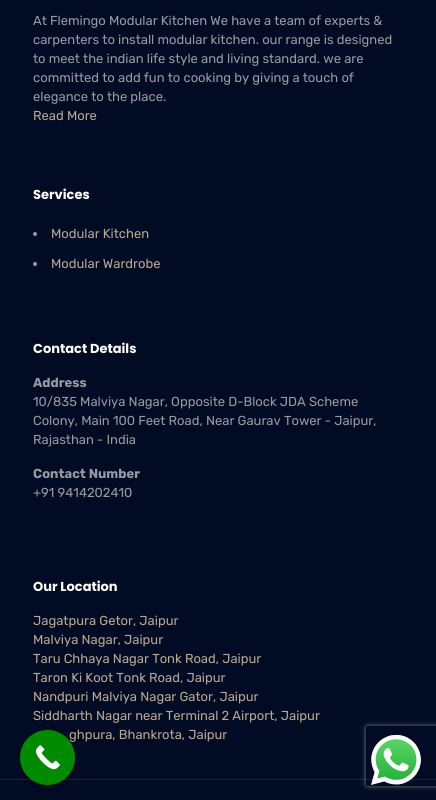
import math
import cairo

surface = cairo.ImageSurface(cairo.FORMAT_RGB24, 436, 800)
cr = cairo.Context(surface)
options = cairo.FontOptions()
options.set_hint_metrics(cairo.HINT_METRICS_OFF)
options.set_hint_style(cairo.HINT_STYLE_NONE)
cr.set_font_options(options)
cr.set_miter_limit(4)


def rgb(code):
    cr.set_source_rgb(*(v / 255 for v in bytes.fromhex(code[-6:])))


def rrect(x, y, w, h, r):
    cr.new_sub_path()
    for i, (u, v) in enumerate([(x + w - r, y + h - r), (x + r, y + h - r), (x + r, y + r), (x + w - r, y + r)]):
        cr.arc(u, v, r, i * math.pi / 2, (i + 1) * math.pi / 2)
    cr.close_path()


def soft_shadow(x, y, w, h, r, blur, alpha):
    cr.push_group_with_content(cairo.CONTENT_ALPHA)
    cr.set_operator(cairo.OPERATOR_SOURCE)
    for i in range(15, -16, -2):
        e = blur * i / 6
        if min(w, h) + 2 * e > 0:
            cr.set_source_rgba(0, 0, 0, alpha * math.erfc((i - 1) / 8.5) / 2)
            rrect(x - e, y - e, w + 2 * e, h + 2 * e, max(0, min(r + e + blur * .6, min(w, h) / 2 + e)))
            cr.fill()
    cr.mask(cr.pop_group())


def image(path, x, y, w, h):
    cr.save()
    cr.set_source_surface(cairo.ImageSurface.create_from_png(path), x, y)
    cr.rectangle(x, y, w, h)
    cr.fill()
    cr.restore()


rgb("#010b23")
cr.paint()
rgb("#969aa4")
cr.arc(35, 234, 2, 0, 2 * math.pi)
cr.fill()
cr.arc(35, 264, 2, 0, 2 * math.pi)
cr.fill()
rgb("#1a2339")
cr.rectangle(0, 779, 436, 1)
cr.fill()
rgb("#000000")
soft_shadow(20, 733, 55, 55, 27.5, 3, 0.3)
cr.save()
cr.set_fill_rule(cairo.FILL_RULE_EVEN_ODD)
cr.new_path()
cr.move_to(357, 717)
cr.line_to(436, 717)
cr.line_to(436, 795)
cr.line_to(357, 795)
cr.close_path()
cr.move_to(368, 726)
cr.line_to(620, 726)
cr.curve_to(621, 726, 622, 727, 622, 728)
cr.line_to(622, 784)
cr.curve_to(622, 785, 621, 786, 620, 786)
cr.line_to(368, 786)
cr.curve_to(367, 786, 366, 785, 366, 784)
cr.line_to(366, 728)
cr.curve_to(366, 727, 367, 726, 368, 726)
cr.close_path()
cr.clip()
rgb("#808080")
soft_shadow(366, 726, 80, 60, 2, 2.5, 1)
cr.restore()
image("img/2.png", 371, 735, 50, 50)
cr.select_font_face("Rubik")
cr.set_font_size(13)
rgb("#969aa4")
for x, y, s in [
    (33, 25, "At Flemingo Modular Kitchen We have a team of experts &"),
    (33, 44, "carpenters to install modular kitchen. our range is designed"),
    (33, 63, "to meet the indian life style and living standard. we are"),
    (33, 82, "committed to add fun to cooking by giving a touch of"),
    (33, 101, "elegance to the place."),
]:
    cr.move_to(x, y)
    cr.show_text(s)
rgb("#b8a892")
cr.move_to(33, 120)
cr.show_text("Read More")
cr.select_font_face("Poppins", cairo.FONT_SLANT_NORMAL, cairo.FONT_WEIGHT_BOLD)
rgb("#ffffff")
cr.move_to(33, 199)
cr.show_text("Services")
cr.select_font_face("Rubik")
rgb("#b8a892")
cr.move_to(51, 238)
cr.show_text("Modular Kitchen")
cr.move_to(51, 268)
cr.show_text("Modular Wardrobe")
cr.select_font_face("Poppins", cairo.FONT_SLANT_NORMAL, cairo.FONT_WEIGHT_BOLD)
rgb("#ffffff")
cr.move_to(33, 353)
cr.show_text("Contact Details")
cr.select_font_face("Rubik", cairo.FONT_SLANT_NORMAL, cairo.FONT_WEIGHT_BOLD)
rgb("#969aa4")
cr.move_to(33, 387)
cr.show_text("Address")
cr.select_font_face("Rubik")
for x, y, s in [
    (33, 406, "10/835 Malviya Nagar, Opposite D-Block JDA Scheme"),
    (33, 425, "Colony, Main 100 Feet Road, Near Gaurav Tower - Jaipur,"),
    (33, 444, "Rajasthan - India"),
]:
    cr.move_to(x, y)
    cr.show_text(s)
cr.select_font_face("Rubik", cairo.FONT_SLANT_NORMAL, cairo.FONT_WEIGHT_BOLD)
cr.move_to(33, 478)
cr.show_text("Contact Number")
cr.select_font_face("Rubik")
cr.move_to(33, 497)
cr.show_text("+91 9414202410")
cr.select_font_face("Poppins", cairo.FONT_SLANT_NORMAL, cairo.FONT_WEIGHT_BOLD)
rgb("#ffffff")
cr.move_to(33, 591)
cr.show_text("Our Location")
cr.select_font_face("Rubik")
rgb("#b8a892")
for x, y, s in [
    (33, 625, "Jagatpura Getor, Jaipur"),
    (33, 644, "Malviya Nagar, Jaipur"),
    (33, 663, "Taru Chhaya Nagar Tonk Road, Jaipur"),
    (33, 682, "Taron Ki Koot Tonk Road, Jaipur"),
    (33, 701, "Nandpuri Malviya Nagar Gator, Jaipur"),
    (33, 720, "Siddharth Nagar near Terminal 2 Airport, Jaipur"),
    (69, 739, "ghpura, Bhankrota, Jaipur"),
]:
    cr.move_to(x, y)
    cr.show_text(s)
rgb("#008a00")
cr.new_path()
cr.arc(47.5, 757.5, 27.5, 0, 2 * math.pi)
cr.fill()
image("img/1.png", 35, 745, 25, 25)
surface.write_to_png("page.png")
